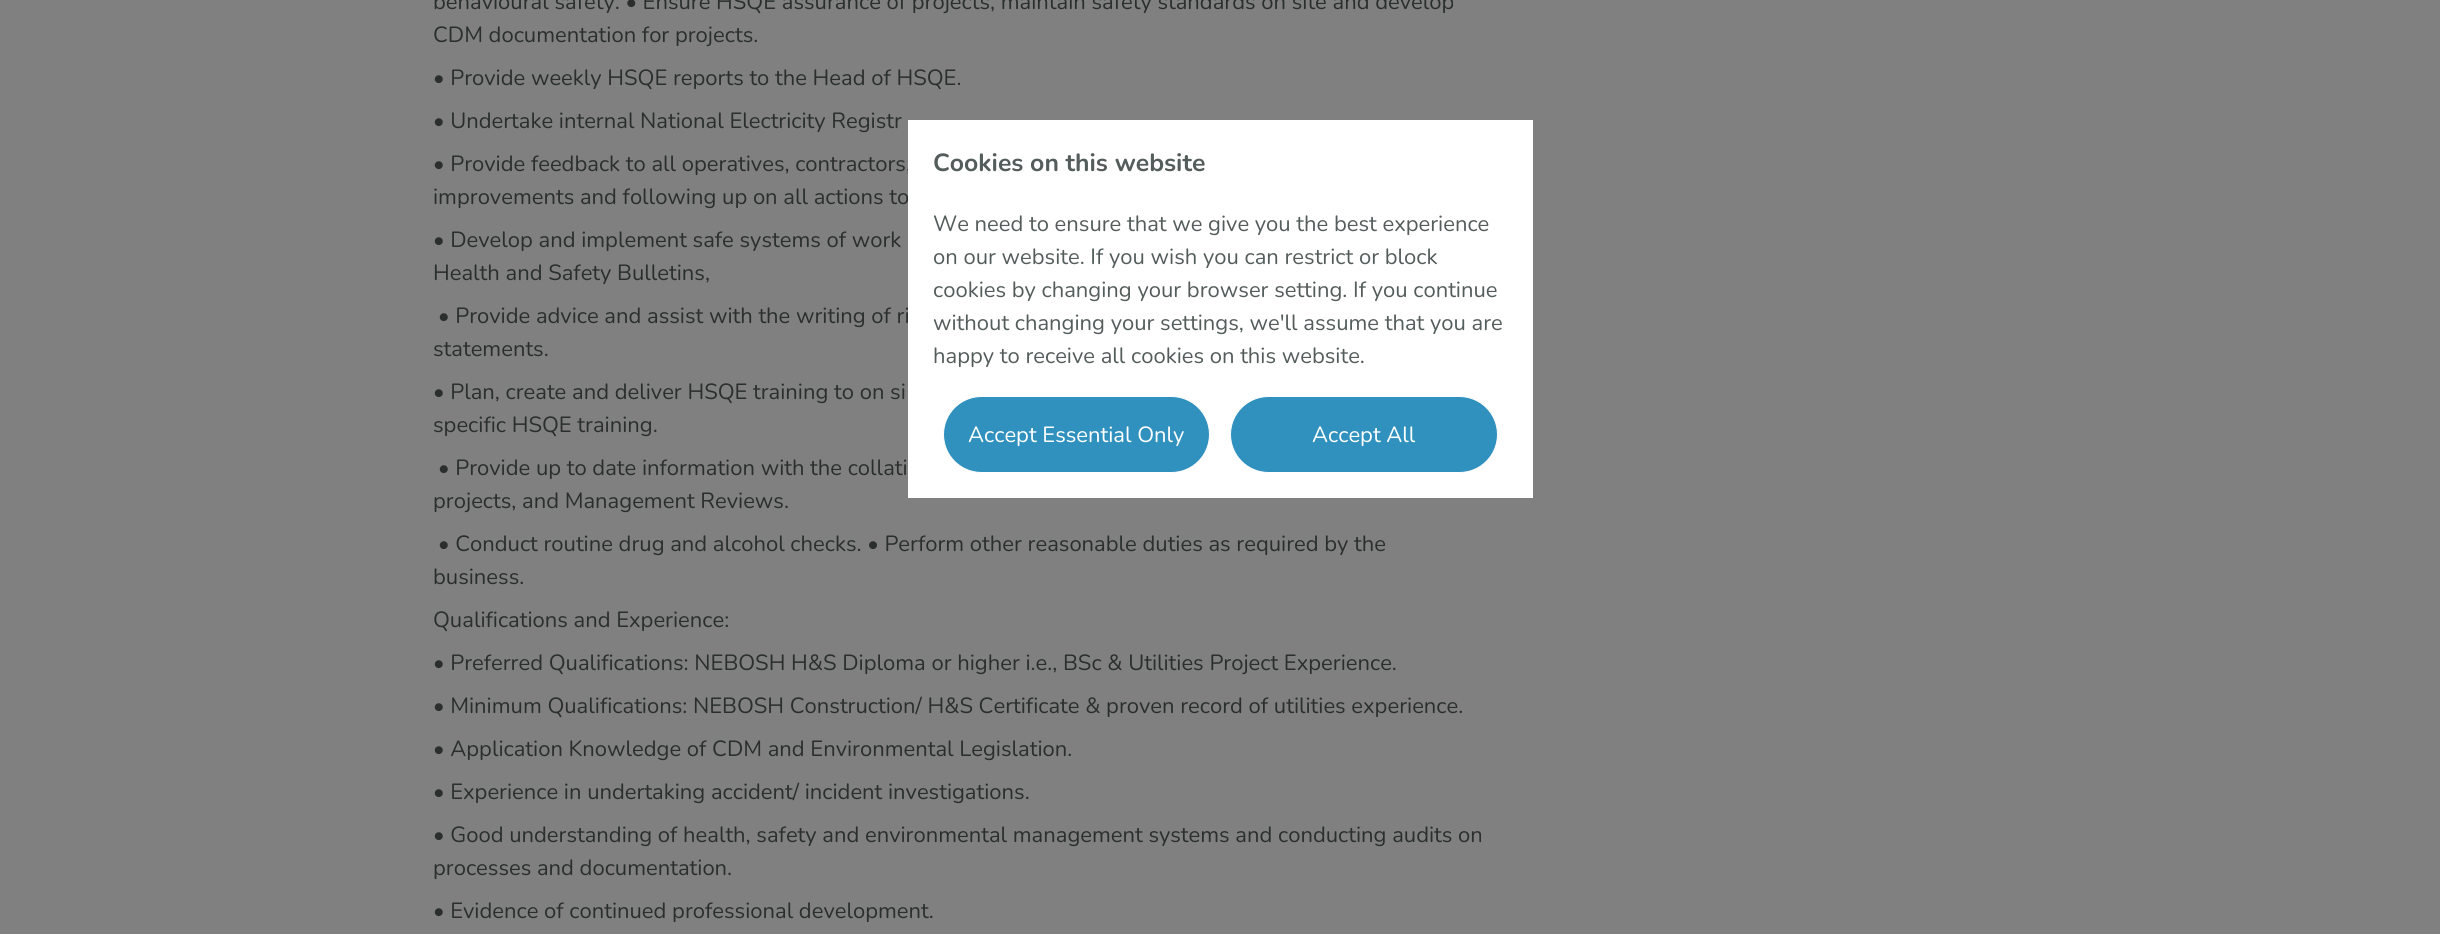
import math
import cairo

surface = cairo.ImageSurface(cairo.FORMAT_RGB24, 2440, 934)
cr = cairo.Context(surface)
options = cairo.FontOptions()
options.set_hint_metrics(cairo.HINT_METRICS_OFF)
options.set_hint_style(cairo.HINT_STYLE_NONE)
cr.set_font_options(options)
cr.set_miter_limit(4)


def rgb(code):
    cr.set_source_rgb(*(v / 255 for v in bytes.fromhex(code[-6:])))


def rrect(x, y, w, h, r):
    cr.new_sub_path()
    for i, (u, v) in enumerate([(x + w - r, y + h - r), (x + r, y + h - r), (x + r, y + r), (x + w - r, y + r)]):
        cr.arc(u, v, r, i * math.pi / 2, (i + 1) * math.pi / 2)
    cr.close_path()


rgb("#808080")
cr.paint()
cr.select_font_face("Nunito")
cr.set_font_size(22)
rgb("#2a2f2e")
for x, y, s in [
    (433, 9, "behavioural safety. • Ensure HSQE assurance of projects, maintain safety standards on site and develop"),
    (433, 42, "CDM documentation for projects."),
    (433, 85, "• Provide weekly HSQE reports to the Head of HSQE."),
    (433, 128, "• Undertake internal National Electricity Registr"),
    (433, 171, "• Provide feedback to all operatives, contractors,"),
    (433, 204, "improvements and following up on all actions to"),
    (433, 247, "• Develop and implement safe systems of work"),
    (433, 280, "Health and Safety Bulletins,"),
    (438, 323, "• Provide advice and assist with the writing of ri"),
    (433, 356, "statements."),
    (433, 399, "• Plan, create and deliver HSQE training to on si"),
    (433, 432, "specific HSQE training."),
    (438, 475, "• Provide up to date information with the collati"),
    (433, 508, "projects, and Management Reviews."),
    (438, 551, "• Conduct routine drug and alcohol checks. • Perform other reasonable duties as required by the"),
    (433, 584, "business."),
    (433, 627, "Qualifications and Experience:"),
    (433, 670, "• Preferred Qualifications: NEBOSH H&S Diploma or higher i.e., BSc & Utilities Project Experience."),
    (433, 713, "• Minimum Qualifications: NEBOSH Construction/ H&S Certificate & proven record of utilities experience."),
    (433, 756, "• Application Knowledge of CDM and Environmental Legislation."),
    (433, 799, "• Experience in undertaking accident/ incident investigations."),
    (433, 842, "• Good understanding of health, safety and environmental management systems and conducting audits on"),
    (433, 875, "processes and documentation."),
    (433, 918, "• Evidence of continued professional development."),
]:
    cr.move_to(x, y)
    cr.show_text(s)
rgb("#ffffff")
cr.rectangle(908, 120, 625, 378)
cr.fill()
cr.select_font_face("Nunito", cairo.FONT_SLANT_NORMAL, cairo.FONT_WEIGHT_BOLD)
cr.set_font_size(24.75)
rgb("#545d5c")
cr.move_to(933, 171)
cr.show_text("Cookies on this website")
cr.select_font_face("Nunito")
cr.set_font_size(22)
for x, y, s in [
    (933, 231, "We need to ensure that we give you the best experience"),
    (933, 264, "on our website. If you wish you can restrict or block"),
    (933, 297, "cookies by changing your browser setting. If you continue"),
    (933, 330, "without changing your settings, we'll assume that you are"),
    (933, 363, "happy to receive all cookies on this website."),
]:
    cr.move_to(x, y)
    cr.show_text(s)
rgb("#3091be")
rrect(943.5, 396.5, 266, 76, 38)
cr.fill_preserve()
rgb("#ffffff")
cr.set_line_width(1)
cr.stroke()
cr.move_to(968, 442)
cr.show_text("Accept Essential Only")
rgb("#3091be")
rrect(1230.5, 396.5, 267, 76, 38)
cr.fill_preserve()
rgb("#ffffff")
cr.stroke()
cr.move_to(1312, 442)
cr.show_text("Accept All")
surface.write_to_png("page.png")
